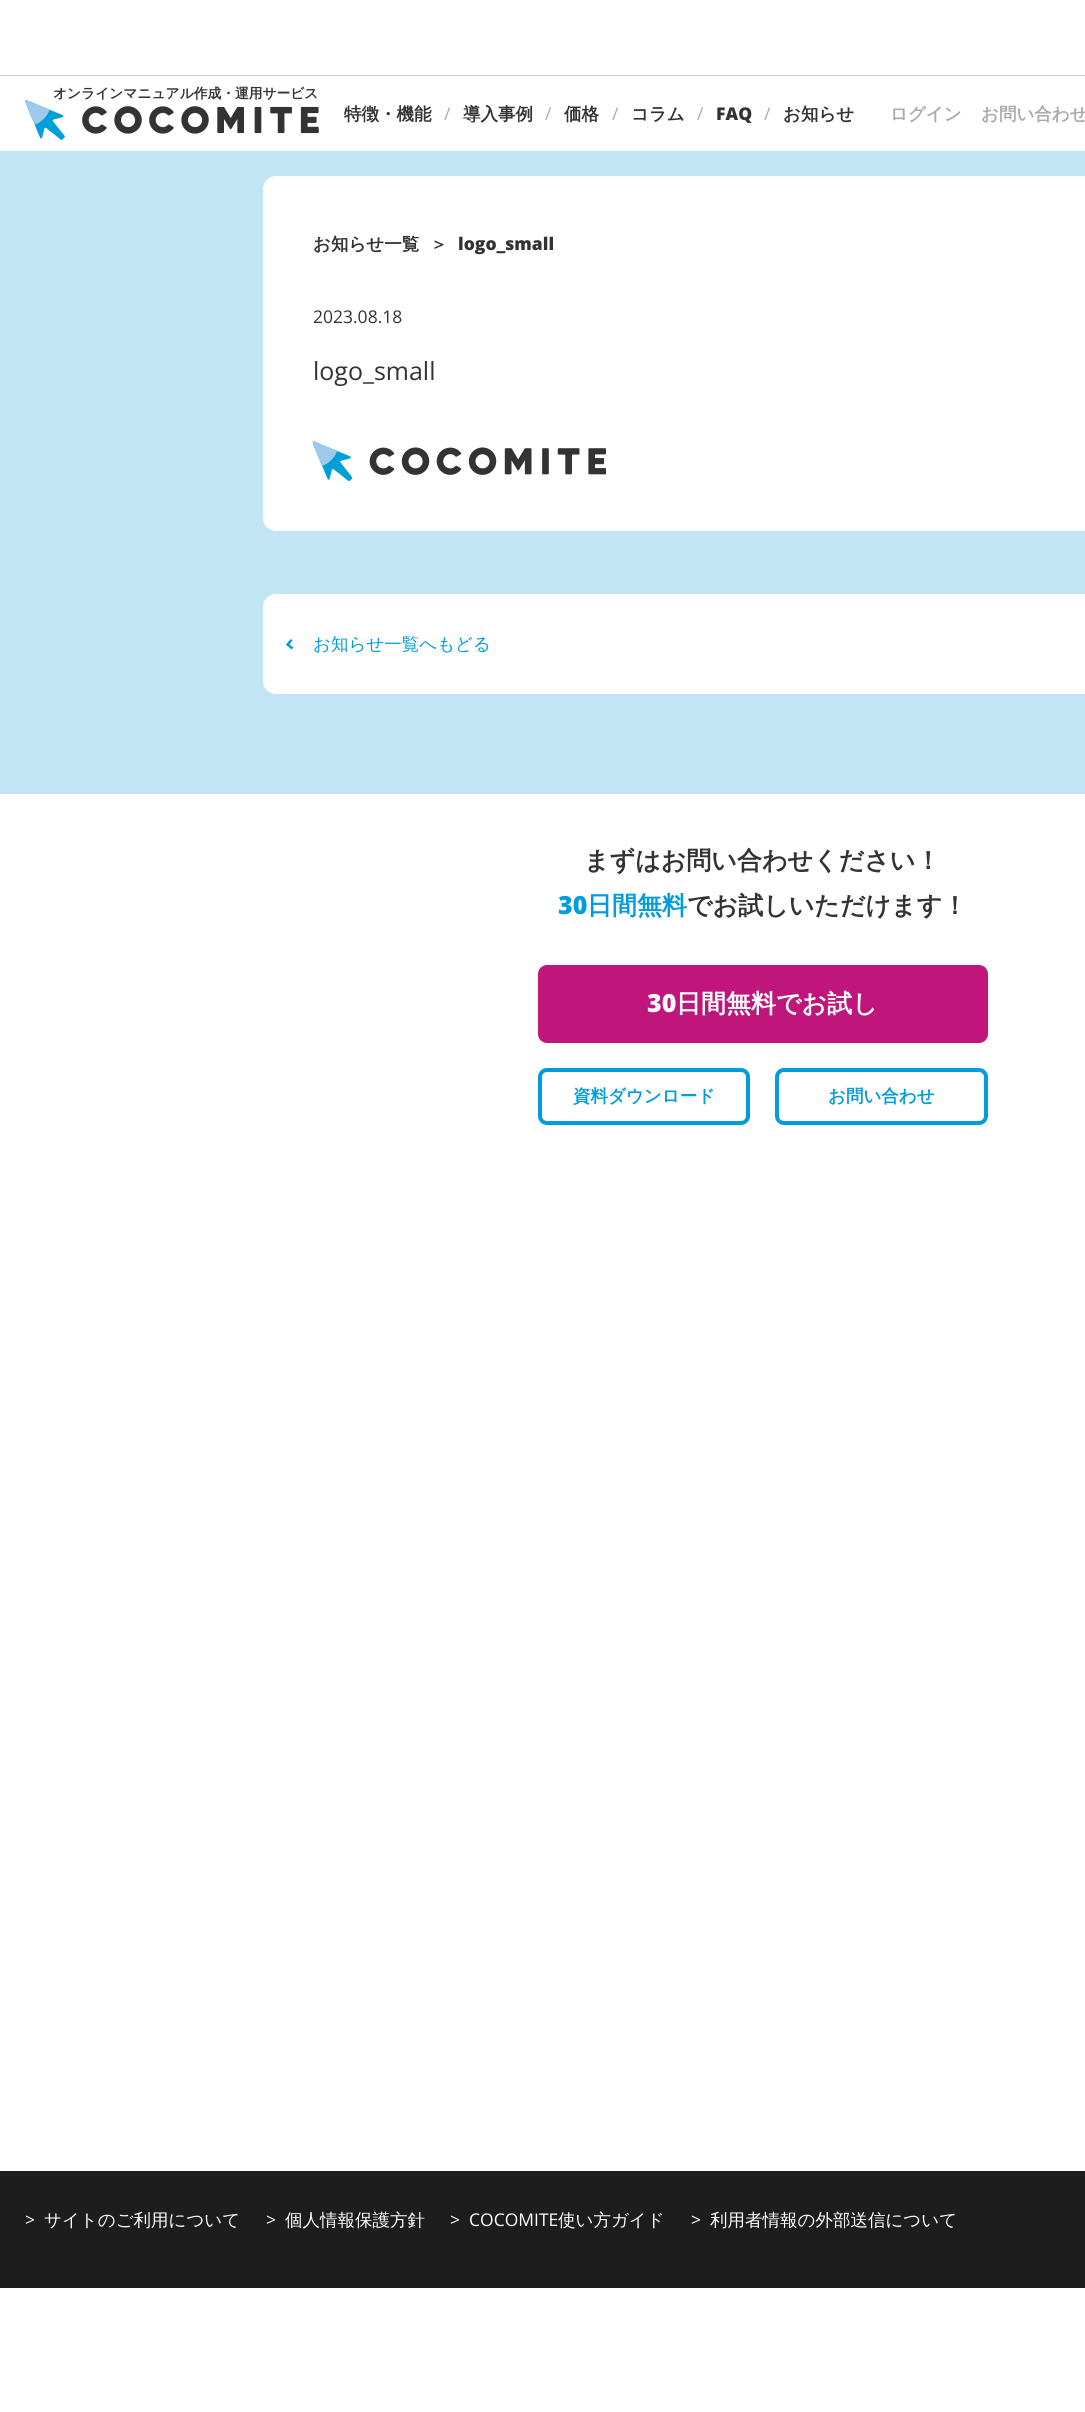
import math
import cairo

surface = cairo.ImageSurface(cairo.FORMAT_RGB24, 1085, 2412)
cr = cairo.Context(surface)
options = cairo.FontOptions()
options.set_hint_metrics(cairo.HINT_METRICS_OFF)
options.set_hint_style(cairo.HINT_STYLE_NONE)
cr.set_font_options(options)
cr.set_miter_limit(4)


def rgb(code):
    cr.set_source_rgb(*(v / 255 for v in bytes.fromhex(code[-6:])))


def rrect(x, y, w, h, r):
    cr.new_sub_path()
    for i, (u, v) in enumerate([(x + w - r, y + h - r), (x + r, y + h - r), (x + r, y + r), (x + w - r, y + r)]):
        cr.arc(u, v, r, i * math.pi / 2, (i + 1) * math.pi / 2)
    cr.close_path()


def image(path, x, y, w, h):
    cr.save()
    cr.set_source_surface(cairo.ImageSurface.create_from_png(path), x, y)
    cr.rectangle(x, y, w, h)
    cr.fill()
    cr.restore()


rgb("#ffffff")
cr.paint()
rgb("#cccccc")
cr.rectangle(0, 75, 1085, 1)
cr.fill()
image("img/1.png", 25, 100, 294, 40)
rgb("#c1e5f4")
cr.rectangle(0, 151, 1085, 643)
cr.fill()
rgb("#ffffff")
rrect(263, 176, 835, 355, 13)
cr.fill()
image("img/2.png", 313, 441, 293, 40)
rrect(263, 594, 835, 100, 13)
cr.fill()
rgb("#009cdc")
cr.new_path()
cr.move_to(293.5, 647.5)
cr.line_to(291.5, 649.5)
cr.line_to(286, 644.5)
cr.line_to(287.5, 643)
cr.close_path()
cr.fill()
cr.new_path()
cr.move_to(292.5, 640.5)
cr.line_to(288, 646.5)
cr.line_to(286, 644.5)
cr.line_to(291, 639)
cr.close_path()
cr.fill()
rgb("#c0167b")
rrect(540, 967, 446, 74, 7)
cr.fill_preserve()
cr.set_line_width(4)
cr.stroke()
rrect(540, 1070, 208, 53, 7)
rgb("#009cdc")
cr.stroke()
rrect(777, 1070, 209, 53, 7)
cr.stroke()
rgb("#1d1d1d")
cr.rectangle(0, 2171, 1085, 117)
cr.fill()
cr.select_font_face("WenQuanYi Zen Hei", cairo.FONT_SLANT_NORMAL, cairo.FONT_WEIGHT_BOLD)
cr.set_font_size(13.75)
rgb("#333333")
cr.move_to(53, 98)
cr.show_text("オンラインマニュアル作成・運用サービス")
cr.set_font_size(17.5)
cr.move_to(344, 120)
cr.show_text("特徴・機能")
cr.select_font_face("Open Sans")
rgb("#aaaaaa")
cr.move_to(444, 120)
cr.show_text("/")
cr.select_font_face("WenQuanYi Zen Hei", cairo.FONT_SLANT_NORMAL, cairo.FONT_WEIGHT_BOLD)
rgb("#333333")
cr.move_to(463, 120)
cr.show_text("導入事例")
cr.select_font_face("Open Sans")
rgb("#aaaaaa")
cr.move_to(545, 120)
cr.show_text("/")
cr.select_font_face("WenQuanYi Zen Hei", cairo.FONT_SLANT_NORMAL, cairo.FONT_WEIGHT_BOLD)
rgb("#333333")
cr.move_to(564, 120)
cr.show_text("価格")
cr.select_font_face("Open Sans")
rgb("#aaaaaa")
cr.move_to(612, 120)
cr.show_text("/")
cr.select_font_face("WenQuanYi Zen Hei", cairo.FONT_SLANT_NORMAL, cairo.FONT_WEIGHT_BOLD)
rgb("#333333")
cr.move_to(631, 120)
cr.show_text("コラム")
cr.select_font_face("Open Sans")
rgb("#aaaaaa")
cr.move_to(697, 120)
cr.show_text("/")
cr.select_font_face("Open Sans ExtraBold")
rgb("#333333")
cr.move_to(716, 120)
cr.show_text("FAQ")
cr.select_font_face("Open Sans")
rgb("#aaaaaa")
cr.move_to(764, 120)
cr.show_text("/")
cr.select_font_face("WenQuanYi Zen Hei", cairo.FONT_SLANT_NORMAL, cairo.FONT_WEIGHT_BOLD)
rgb("#333333")
cr.move_to(783, 120)
cr.show_text("お知らせ")
rgb("#aaaaaa")
cr.move_to(890, 120)
cr.show_text("ログイン")
cr.move_to(981, 120)
cr.show_text("お問い合わせ")
rgb("#333333")
cr.move_to(313, 250)
cr.show_text("お知らせ一覧")
cr.move_to(430, 250)
cr.show_text("＞")
cr.select_font_face("Open Sans ExtraBold")
cr.move_to(458, 250)
cr.show_text("logo_small")
cr.select_font_face("Open Sans")
cr.move_to(313, 323)
cr.show_text("2023.08.18")
cr.set_font_size(25)
cr.move_to(313, 380)
cr.show_text("logo_small")
cr.select_font_face("WenQuanYi Zen Hei Medium")
cr.set_font_size(17.5)
rgb("#009cdc")
cr.move_to(313, 650)
cr.show_text("お知らせ一覧へもどる")
cr.select_font_face("WenQuanYi Zen Hei", cairo.FONT_SLANT_NORMAL, cairo.FONT_WEIGHT_BOLD)
cr.set_font_size(25)
rgb("#333333")
cr.move_to(584, 869)
cr.show_text("まずはお問い合わせください！")
cr.select_font_face("Open Sans ExtraBold")
rgb("#009cdc")
cr.move_to(558, 914)
cr.show_text("30")
cr.select_font_face("WenQuanYi Zen Hei", cairo.FONT_SLANT_NORMAL, cairo.FONT_WEIGHT_BOLD)
cr.move_to(587, 914)
cr.show_text("日間無料")
rgb("#333333")
cr.move_to(687, 914)
cr.show_text("でお試しいただけます！")
cr.select_font_face("Open Sans ExtraBold")
rgb("#ffffff")
cr.move_to(647, 1012)
cr.show_text("30")
cr.select_font_face("WenQuanYi Zen Hei", cairo.FONT_SLANT_NORMAL, cairo.FONT_WEIGHT_BOLD)
cr.move_to(676, 1012)
cr.show_text("日間無料でお試し")
cr.set_font_size(17.5)
rgb("#009cdc")
cr.move_to(573, 1102)
cr.show_text("資料ダウンロード")
cr.move_to(828, 1102)
cr.show_text("お問い合わせ")
cr.select_font_face("Open Sans")
rgb("#ffffff")
cr.move_to(25, 2226)
cr.show_text(">")
cr.select_font_face("WenQuanYi Zen Hei Medium")
cr.move_to(44, 2226)
cr.show_text("サイトのご利用について")
cr.select_font_face("Open Sans")
cr.move_to(266, 2226)
cr.show_text(">")
cr.select_font_face("WenQuanYi Zen Hei Medium")
cr.move_to(285, 2226)
cr.show_text("個人情報保護方針")
cr.select_font_face("Open Sans")
cr.move_to(450, 2226)
cr.show_text(">")
cr.move_to(469, 2226)
cr.show_text("COCOMITE")
cr.select_font_face("WenQuanYi Zen Hei Medium")
cr.move_to(558, 2226)
cr.show_text("使い方ガイド")
cr.select_font_face("Open Sans")
cr.move_to(691, 2226)
cr.show_text(">")
cr.select_font_face("WenQuanYi Zen Hei Medium")
cr.move_to(710, 2226)
cr.show_text("利用者情報の外部送信について")
surface.write_to_png("page.png")
